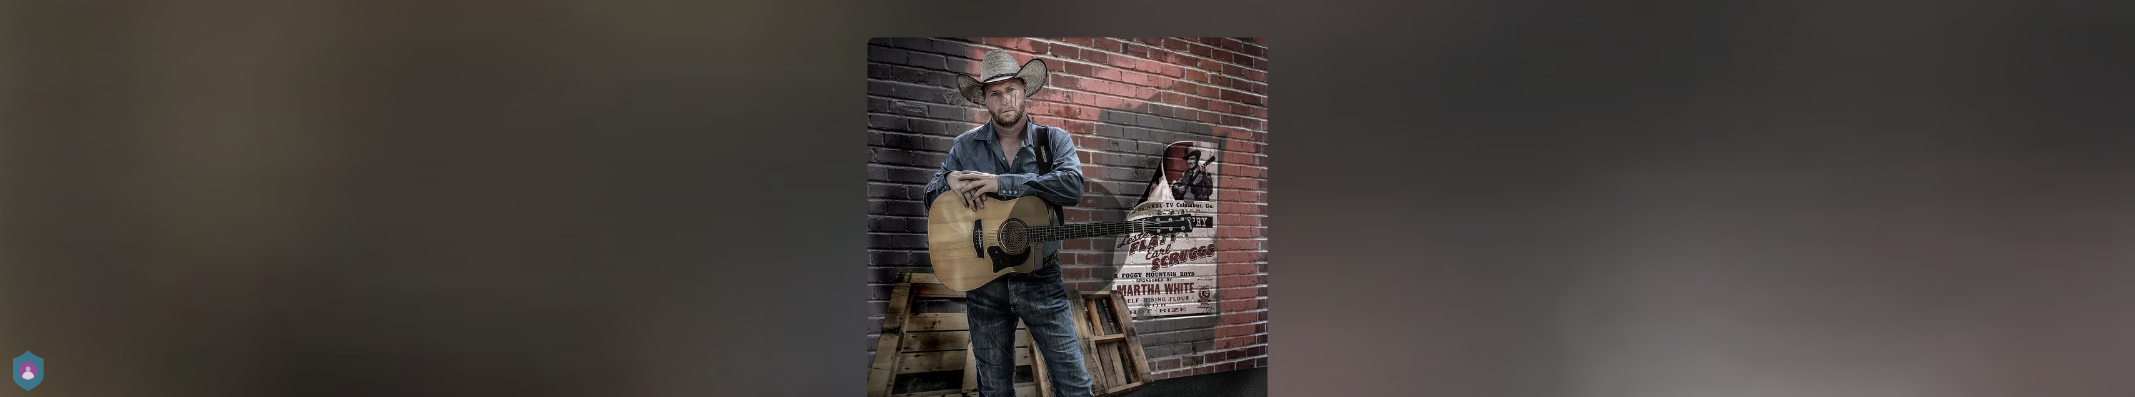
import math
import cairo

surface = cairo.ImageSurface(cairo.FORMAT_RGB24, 2135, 397)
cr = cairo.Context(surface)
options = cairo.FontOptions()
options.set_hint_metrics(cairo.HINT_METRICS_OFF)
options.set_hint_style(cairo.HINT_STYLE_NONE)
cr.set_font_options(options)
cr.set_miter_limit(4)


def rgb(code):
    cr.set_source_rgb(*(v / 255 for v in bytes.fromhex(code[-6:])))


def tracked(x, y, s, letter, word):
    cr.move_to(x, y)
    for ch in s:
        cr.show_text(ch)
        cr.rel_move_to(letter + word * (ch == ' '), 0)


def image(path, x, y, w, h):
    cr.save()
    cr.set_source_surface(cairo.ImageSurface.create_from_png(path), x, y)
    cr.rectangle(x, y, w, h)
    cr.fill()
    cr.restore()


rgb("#ffffff")
cr.paint()
image("img/1.png", 0, 0, 2135, 397)
image("img/2.png", 867, 37, 401, 360)
cr.set_source_rgba(0, 0, 0, 0.45)
cr.arc(1067.5, 237.5, 62.5, 0, 2 * math.pi)
cr.fill()
image("img/3.png", 13, 350, 31, 41)
cr.select_font_face("Montserrat")
cr.set_font_size(16.25)
rgb("#7a6562")
tracked(943, 106, "You're all set!", 0, 1)
surface.write_to_png("page.png")
